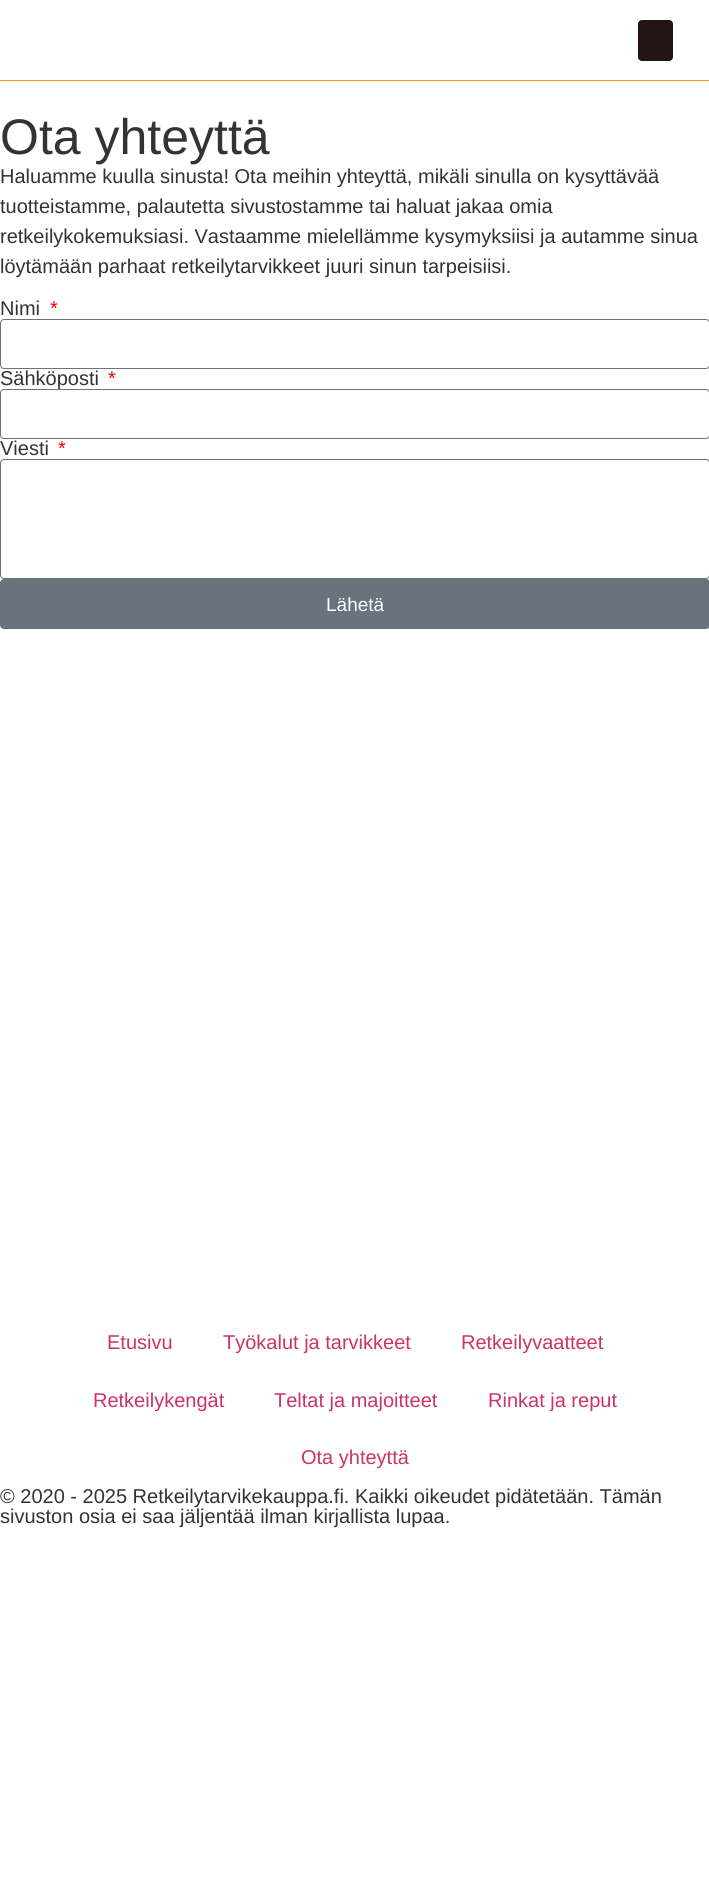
import math
import cairo

surface = cairo.ImageSurface(cairo.FORMAT_RGB24, 709, 1891)
cr = cairo.Context(surface)
options = cairo.FontOptions()
options.set_hint_metrics(cairo.HINT_METRICS_OFF)
options.set_hint_style(cairo.HINT_STYLE_NONE)
cr.set_font_options(options)
cr.set_miter_limit(4)


def rgb(code):
    cr.set_source_rgb(*(v / 255 for v in bytes.fromhex(code[-6:])))


def rrect(x, y, w, h, r):
    cr.new_sub_path()
    for i, (u, v) in enumerate([(x + w - r, y + h - r), (x + r, y + h - r), (x + r, y + r), (x + w - r, y + r)]):
        cr.arc(u, v, r, i * math.pi / 2, (i + 1) * math.pi / 2)
    cr.close_path()


rgb("#ffffff")
cr.paint()
rgb("#e49d13")
cr.rectangle(0, 80, 709, 1)
cr.fill()
rgb("#221512")
rrect(638, 20, 35, 41, 4)
cr.fill()
rrect(0.5, 319.5, 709, 49, 3.5)
rgb("#69727d")
cr.set_line_width(1)
cr.stroke()
rrect(0.5, 459.5, 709, 119, 3.5)
cr.stroke()
rrect(0, 579, 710, 50, 4)
cr.fill()
cr.select_font_face("Liberation Sans")
cr.set_font_size(50)
rgb("#333333")
cr.move_to(0, 154)
cr.show_text("Ota yhteyttä")
cr.set_font_size(20)
for x, y, s in [
    (0, 183, "Haluamme kuulla sinusta! Ota meihin yhteyttä, mikäli sinulla on kysyttävää"),
    (0, 213, "tuotteistamme, palautetta sivustostamme tai haluat jakaa omia"),
    (0, 243, "retkeilykokemuksiasi. Vastaamme mielellämme kysymyksiisi ja autamme sinua"),
    (0, 273, "löytämään parhaat retkeilytarvikkeet juuri sinun tarpeisiisi."),
    (0, 315, "Nimi"),
]:
    cr.move_to(x, y)
    cr.show_text(s)
rgb("#ff0000")
cr.move_to(50, 315)
cr.show_text("*")
rgb("#333333")
cr.move_to(0, 385)
cr.show_text("Sähköposti")
rgb("#ff0000")
cr.move_to(108, 385)
cr.show_text("*")
rrect(0.5, 389.5, 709, 49, 3.5)
rgb("#69727d")
cr.stroke()
rgb("#333333")
cr.move_to(0, 455)
cr.show_text("Viesti")
rgb("#ff0000")
cr.move_to(58, 455)
cr.show_text("*")
cr.set_font_size(19)
rgb("#ffffff")
cr.move_to(326, 611)
cr.show_text("Lähetä")
cr.set_font_size(20)
rgb("#cc3366")
for x, y, s in [
    (107, 1349, "Etusivu"),
    (223, 1349, "Työkalut ja tarvikkeet"),
    (461, 1349, "Retkeilyvaatteet"),
    (93, 1407, "Retkeilykengät"),
    (274, 1407, "Teltat ja majoitteet"),
    (488, 1407, "Rinkat ja reput"),
    (301, 1464, "Ota yhteyttä"),
]:
    cr.move_to(x, y)
    cr.show_text(s)
rgb("#333333")
cr.move_to(0, 1503)
cr.show_text("© 2020 - 2025 Retkeilytarvikekauppa.fi. Kaikki oikeudet pidätetään. Tämän")
cr.move_to(0, 1523)
cr.show_text("sivuston osia ei saa jäljentää ilman kirjallista lupaa.")
surface.write_to_png("page.png")
